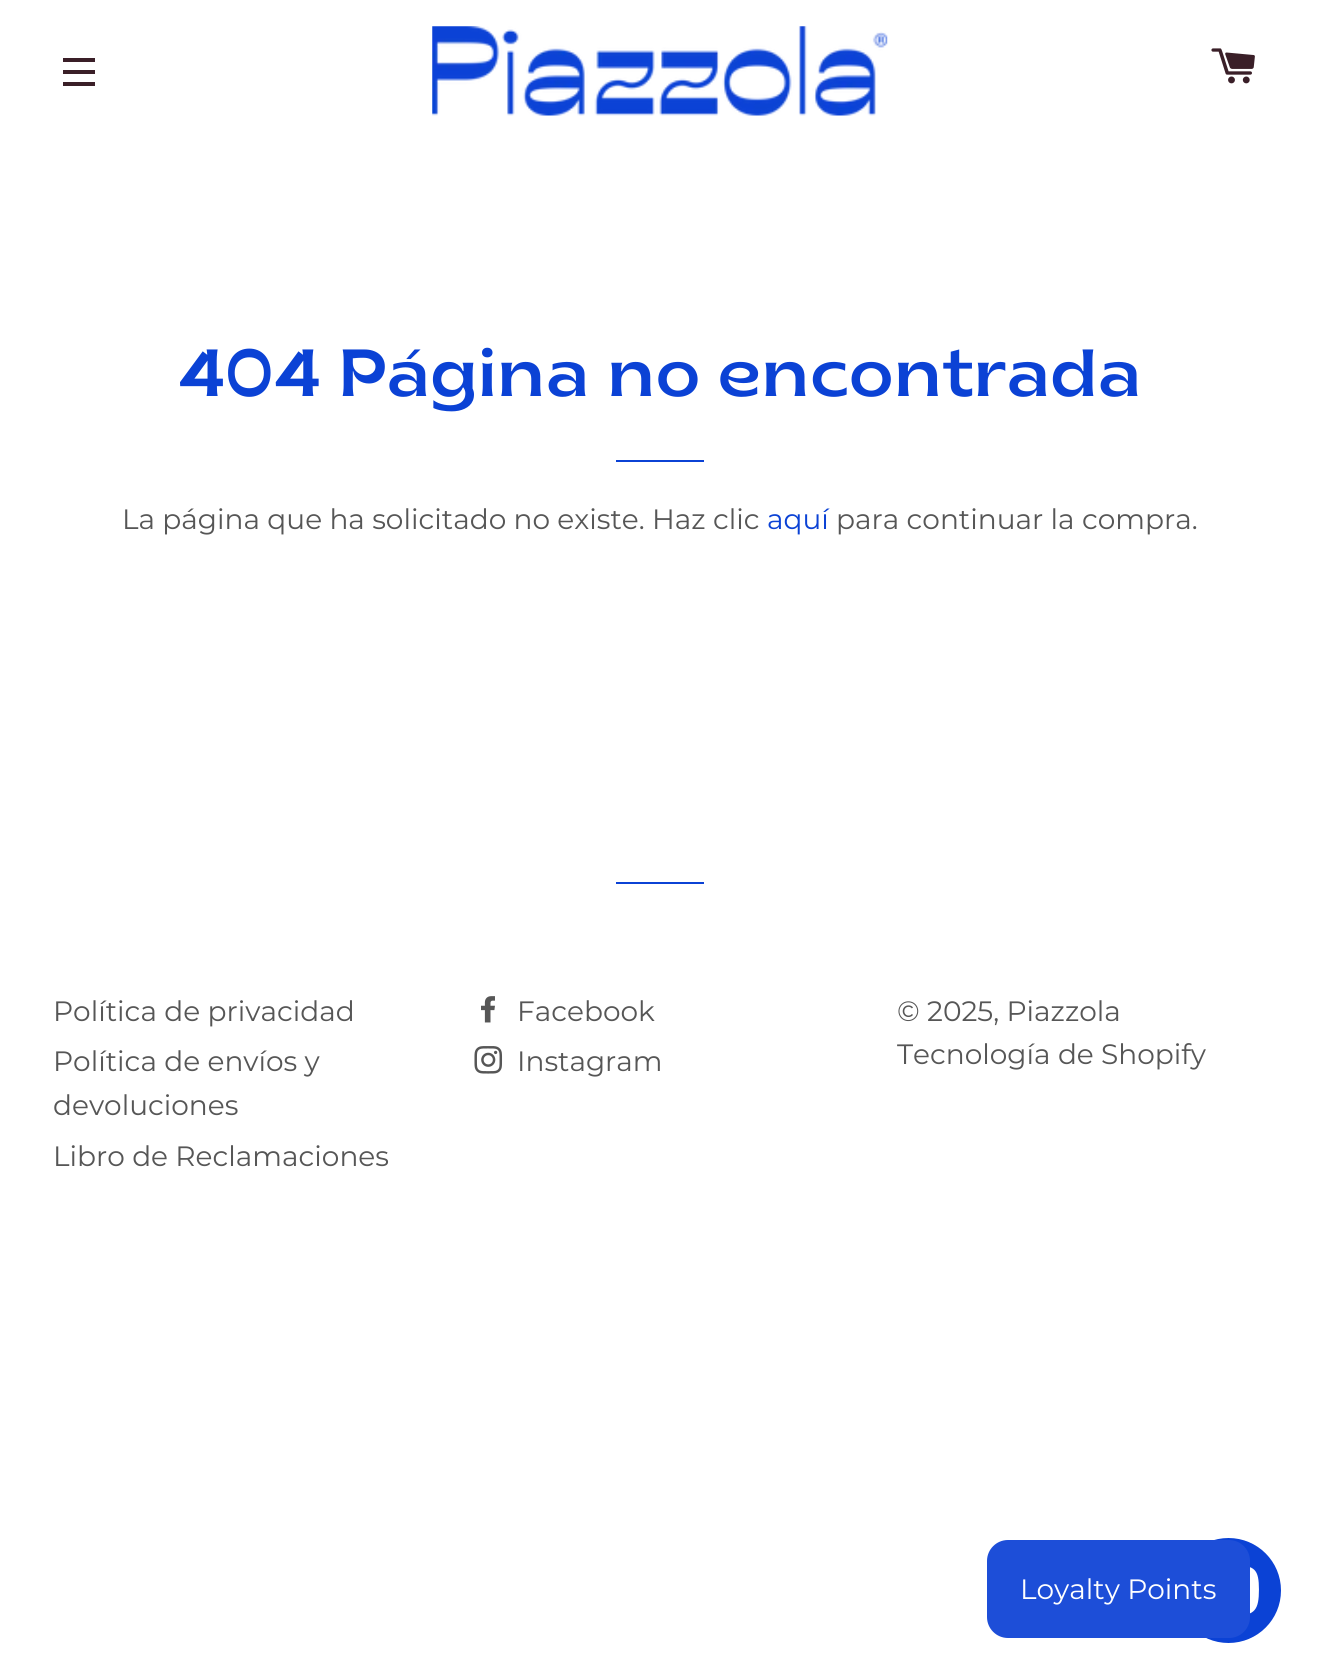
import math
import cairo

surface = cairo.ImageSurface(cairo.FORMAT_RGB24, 1318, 1680)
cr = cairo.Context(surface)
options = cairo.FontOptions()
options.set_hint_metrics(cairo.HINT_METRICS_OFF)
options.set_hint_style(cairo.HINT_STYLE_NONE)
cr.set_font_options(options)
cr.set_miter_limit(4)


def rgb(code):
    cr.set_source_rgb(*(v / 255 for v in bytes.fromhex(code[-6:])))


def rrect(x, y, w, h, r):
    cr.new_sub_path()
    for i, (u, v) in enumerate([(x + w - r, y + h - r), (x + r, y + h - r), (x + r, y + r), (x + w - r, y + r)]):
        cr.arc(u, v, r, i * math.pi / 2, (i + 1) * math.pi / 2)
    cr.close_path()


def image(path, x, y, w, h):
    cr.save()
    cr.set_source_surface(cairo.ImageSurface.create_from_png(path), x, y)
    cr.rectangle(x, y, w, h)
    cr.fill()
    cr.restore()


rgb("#ffffff")
cr.paint()
for x, y, w, h, color in [
    (63, 58, 32, 4, "#3a1f28"),
    (63, 70, 32, 4, "#3a1f28"),
    (63, 82, 32, 4, "#3a1f28"),
]:
    rgb(color)
    cr.rectangle(x, y, w, h)
    cr.fill()
image("img/1.png", 432, 26, 456, 90)
image("img/2.png", 1211, 48, 44, 36)
rgb("#0b42d5")
cr.rectangle(616, 460, 88, 2)
cr.fill()
cr.rectangle(616, 882, 88, 2)
cr.fill()
image("img/3.png", 481, 996, 14, 27)
image("img/4.png", 474, 1046, 29, 28)
cr.arc(1228.5, 1590.5, 52.5, 0, 2 * math.pi)
cr.fill()
rgb("#1d4ed8")
rrect(987, 1540, 263, 98, 21)
cr.fill()
image("img/5.png", 1250, 1567, 9, 47)
cr.select_font_face("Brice")
cr.set_font_size(66.5)
rgb("#0b42d5")
cr.move_to(178, 396)
cr.show_text("404 Página no encontrada")
cr.select_font_face("Montserrat")
cr.set_font_size(28)
rgb("#565656")
cr.move_to(122, 529)
cr.show_text("La página que ha solicitado no existe. Haz clic")
rgb("#0b42d5")
cr.move_to(767, 529)
cr.show_text("aquí")
rgb("#565656")
for x, y, s in [
    (836, 529, "para continuar la compra."),
    (53, 1021, "Política de privacidad"),
    (53, 1071, "Política de envíos y"),
    (53, 1115, "devoluciones"),
    (53, 1166, "Libro de Reclamaciones"),
    (517, 1021, "Facebook"),
    (517, 1071, "Instagram"),
    (897, 1021, "© 2025, Piazzola"),
    (897, 1064, "Tecnología de Shopify"),
]:
    cr.move_to(x, y)
    cr.show_text(s)
rgb("#ffffff")
cr.move_to(1020, 1599)
cr.show_text("Loyalty Points")
surface.write_to_png("page.png")
